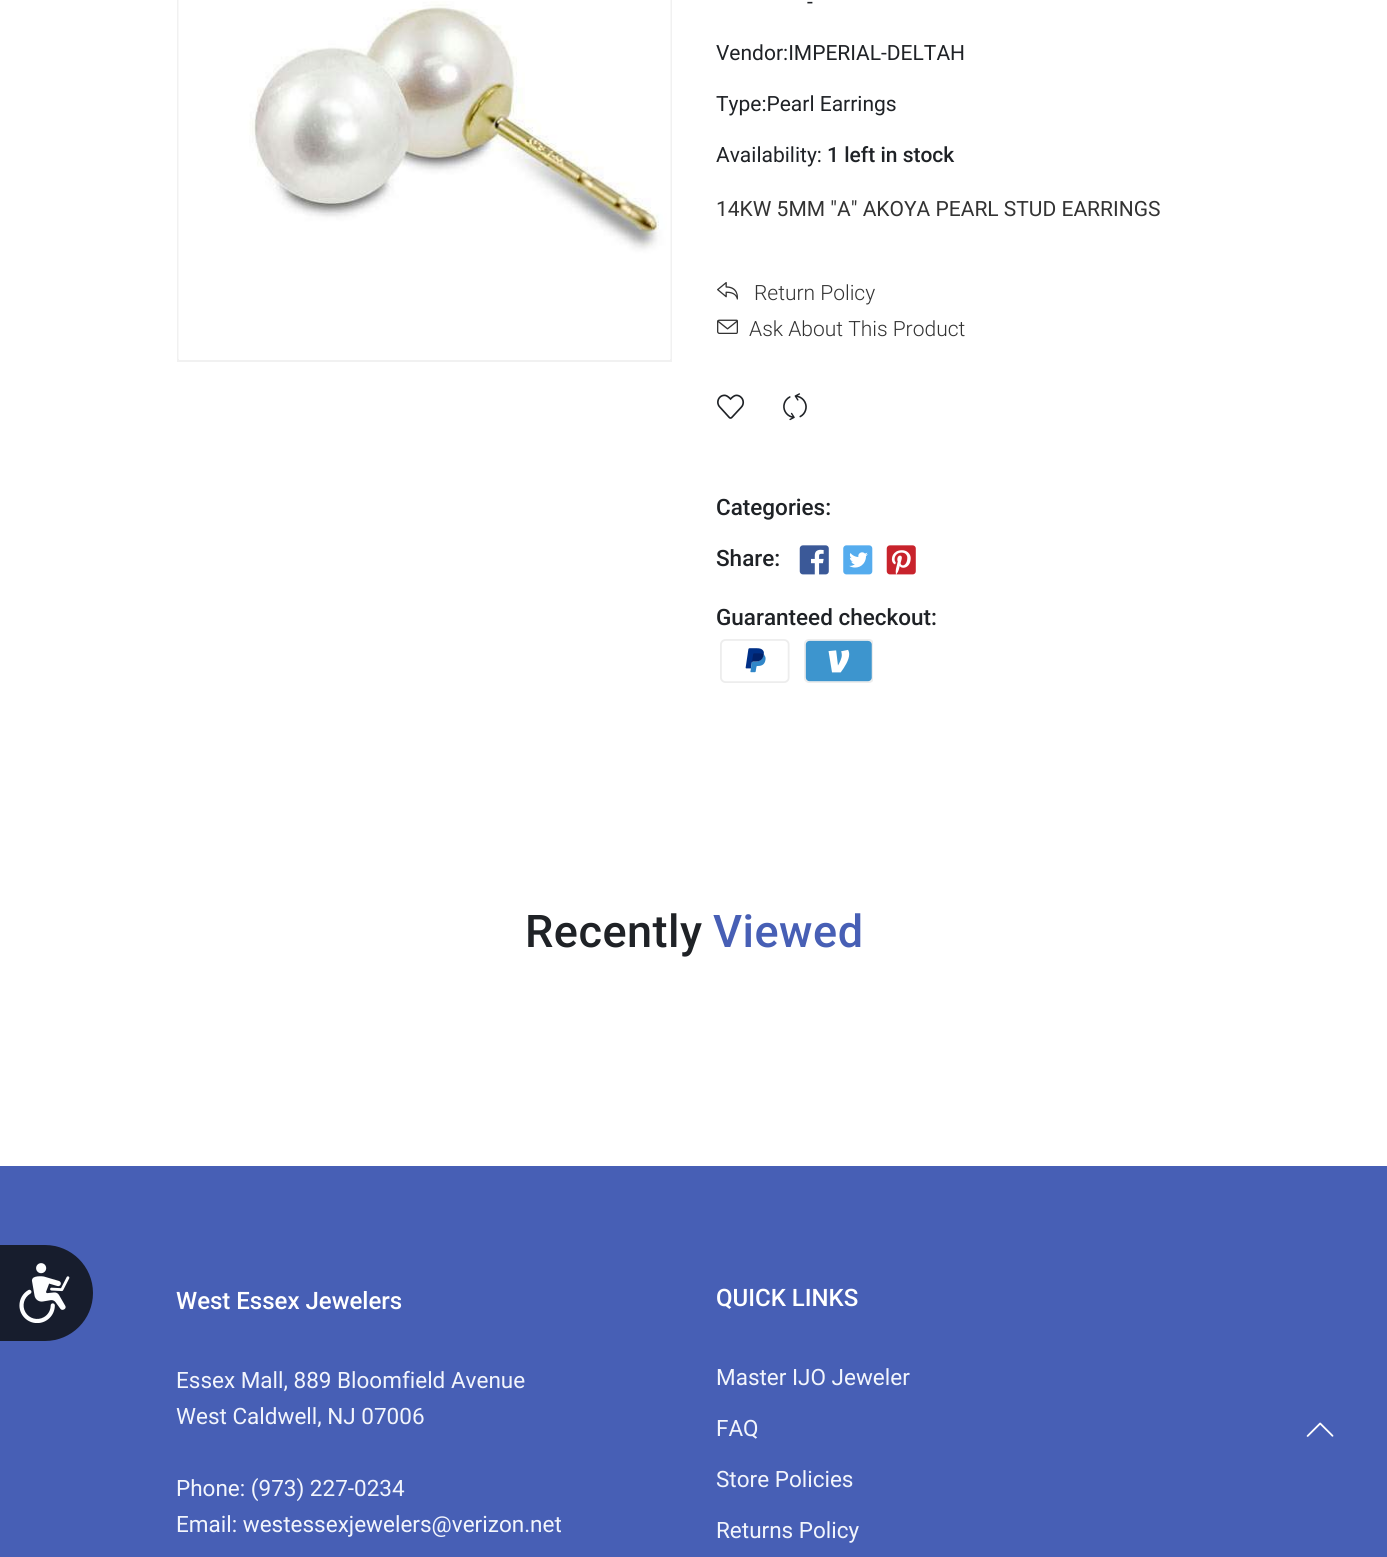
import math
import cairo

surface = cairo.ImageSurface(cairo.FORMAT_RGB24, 1387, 1557)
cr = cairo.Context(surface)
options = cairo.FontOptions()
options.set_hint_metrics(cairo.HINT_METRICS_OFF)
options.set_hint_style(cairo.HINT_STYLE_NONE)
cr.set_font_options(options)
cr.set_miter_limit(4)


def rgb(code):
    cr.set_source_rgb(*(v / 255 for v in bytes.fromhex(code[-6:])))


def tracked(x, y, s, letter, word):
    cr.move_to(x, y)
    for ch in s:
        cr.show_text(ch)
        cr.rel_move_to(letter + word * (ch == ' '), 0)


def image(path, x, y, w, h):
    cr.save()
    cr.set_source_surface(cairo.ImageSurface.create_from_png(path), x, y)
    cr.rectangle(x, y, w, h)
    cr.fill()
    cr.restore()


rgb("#ffffff")
cr.paint()
rgb("#475fb5")
cr.rectangle(0, 1166, 1387, 391)
cr.fill()
rgb("#171d2d")
cr.new_path()
cr.move_to(0, 1245)
cr.line_to(45, 1245)
cr.curve_to(71.5, 1245, 93, 1266.5, 93, 1293)
cr.curve_to(93, 1319.5, 71.5, 1341, 45, 1341)
cr.line_to(0, 1341)
cr.close_path()
cr.fill()
image("img/1.png", 19, 1263, 51, 60)
cr.rectangle(178, -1, 493, 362)
rgb("#f1f1f1")
cr.stroke()
image("img/2.png", 178, 0, 493, 359)
image("img/3.png", 717, 282, 21, 18)
image("img/4.png", 717, 319, 21, 15)
image("img/5.png", 717, 394, 28, 25)
image("img/6.png", 783, 393, 24, 28)
image("img/7.png", 799, 545, 30, 30)
image("img/8.png", 843, 545, 30, 30)
image("img/9.png", 886, 545, 30, 30)
image("img/10.png", 720, 639, 70, 44)
image("img/11.png", 804, 639, 69, 44)
image("img/12.png", 1306, 1422, 28, 15)
cr.select_font_face("Roboto")
cr.set_font_size(21)
rgb("#1f2226")
for x, y, s in [
    (807, 9, "-"),
    (716, 60, "Vendor:IMPERIAL-DELTAH"),
    (716, 111, "Type:Pearl Earrings"),
    (716, 162, "Availability:"),
]:
    cr.move_to(x, y)
    cr.show_text(s)
cr.select_font_face("Roboto Medium")
cr.move_to(827, 162)
cr.show_text("1 left in stock")
cr.select_font_face("Roboto")
rgb("#333333")
cr.move_to(716, 216)
cr.show_text("14KW 5MM \"A\" AKOYA PEARL STUD EARRINGS")
cr.select_font_face("Roboto Light")
cr.move_to(754, 300)
cr.show_text("Return Policy")
cr.move_to(749, 336)
cr.show_text("Ask About This Product")
cr.select_font_face("Roboto Medium")
cr.set_font_size(22.5)
rgb("#1f2226")
for x, y, s in [
    (716, 515, "Categories:"),
    (716, 566, "Share:"),
    (716, 625, "Guaranteed checkout:"),
]:
    cr.move_to(x, y)
    cr.show_text(s)
cr.set_font_size(45)
tracked(525, 947, "Recently", 0.5, 0)
rgb("#475fb5")
tracked(713, 947, "Viewed", 0.5, 0)
cr.set_font_size(24)
rgb("#ffffff")
cr.move_to(176, 1309)
cr.show_text("West Essex Jewelers")
cr.select_font_face("Roboto")
cr.set_font_size(22.5)
rgb("#f2f5fc")
for x, y, s in [
    (176, 1388, "Essex Mall, 889 Bloomfield Avenue"),
    (176, 1424, "West Caldwell, NJ 07006"),
    (176, 1496, "Phone: (973) 227-0234"),
    (176, 1532, "Email: westessexjewelers@verizon.net"),
]:
    cr.move_to(x, y)
    cr.show_text(s)
cr.select_font_face("Roboto Medium")
cr.set_font_size(24)
rgb("#ffffff")
cr.move_to(716, 1306)
cr.show_text("QUICK LINKS")
cr.select_font_face("Roboto")
cr.set_font_size(22.5)
rgb("#f2f5fc")
for x, y, s in [
    (716, 1385, "Master IJO Jeweler"),
    (716, 1436, "FAQ"),
    (716, 1487, "Store Policies"),
    (716, 1538, "Returns Policy"),
]:
    cr.move_to(x, y)
    cr.show_text(s)
surface.write_to_png("page.png")
